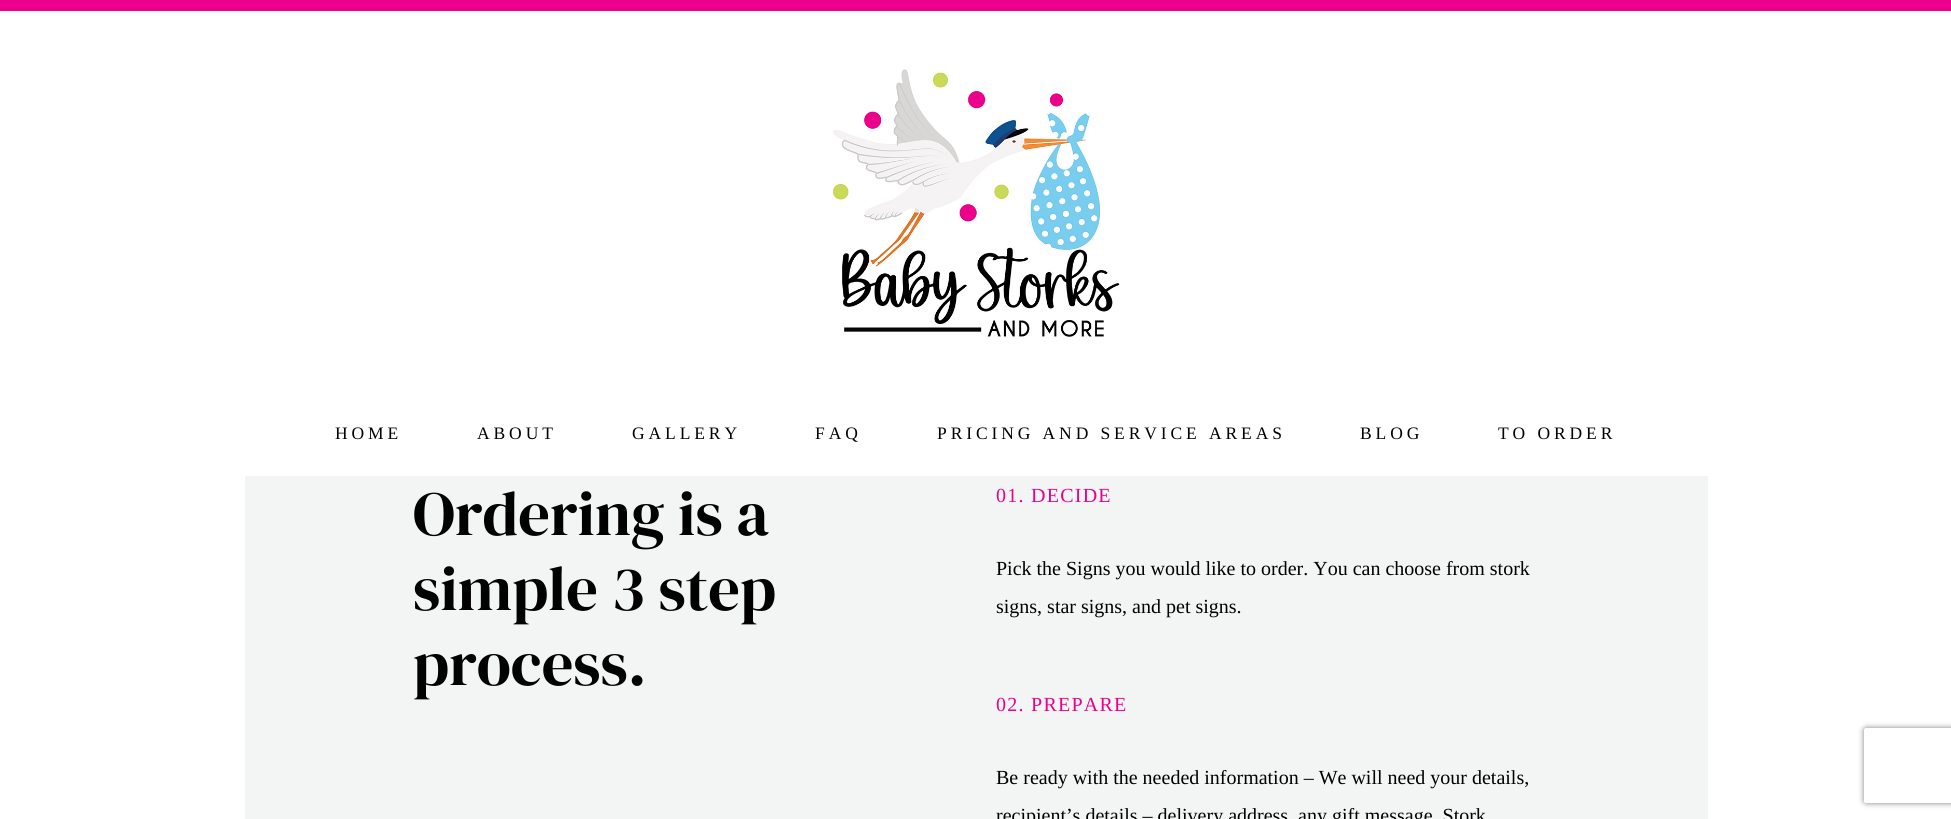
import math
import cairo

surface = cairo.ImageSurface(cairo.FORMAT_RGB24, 1951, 819)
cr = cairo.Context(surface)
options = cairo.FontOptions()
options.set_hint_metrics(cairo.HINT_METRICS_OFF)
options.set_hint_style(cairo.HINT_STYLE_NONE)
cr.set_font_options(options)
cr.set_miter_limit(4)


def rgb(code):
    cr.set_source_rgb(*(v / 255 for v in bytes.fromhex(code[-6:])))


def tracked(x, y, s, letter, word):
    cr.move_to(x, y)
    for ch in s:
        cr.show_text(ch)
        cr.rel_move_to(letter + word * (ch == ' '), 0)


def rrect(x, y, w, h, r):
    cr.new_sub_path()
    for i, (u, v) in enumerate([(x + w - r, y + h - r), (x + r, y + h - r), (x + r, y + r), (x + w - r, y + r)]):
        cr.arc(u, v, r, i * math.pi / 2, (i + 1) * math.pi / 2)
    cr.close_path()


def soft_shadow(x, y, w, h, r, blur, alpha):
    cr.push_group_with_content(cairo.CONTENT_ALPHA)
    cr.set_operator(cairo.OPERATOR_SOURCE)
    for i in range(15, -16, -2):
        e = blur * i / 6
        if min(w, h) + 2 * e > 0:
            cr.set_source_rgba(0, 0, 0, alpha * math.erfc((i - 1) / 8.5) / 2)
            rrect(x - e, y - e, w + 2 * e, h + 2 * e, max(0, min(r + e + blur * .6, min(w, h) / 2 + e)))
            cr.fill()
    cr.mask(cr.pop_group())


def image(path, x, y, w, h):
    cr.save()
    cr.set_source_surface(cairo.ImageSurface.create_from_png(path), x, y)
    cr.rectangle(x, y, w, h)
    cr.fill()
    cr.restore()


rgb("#ffffff")
cr.paint()
rgb("#ec008c")
cr.rectangle(0, 0, 1951, 11)
cr.fill()
image("img/1.png", 832, 69, 288, 268)
rgb("#f3f5f5")
cr.rectangle(245, 476, 1463, 343)
cr.fill()
cr.save()
cr.set_fill_rule(cairo.FILL_RULE_EVEN_ODD)
cr.new_path()
cr.move_to(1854, 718)
cr.line_to(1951, 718)
cr.line_to(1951, 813)
cr.line_to(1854, 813)
cr.close_path()
cr.move_to(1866.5, 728)
cr.line_to(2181.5, 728)
cr.curve_to(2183, 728, 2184, 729, 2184, 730.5)
cr.line_to(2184, 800.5)
cr.curve_to(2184, 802, 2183, 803, 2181.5, 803)
cr.line_to(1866.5, 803)
cr.curve_to(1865, 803, 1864, 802, 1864, 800.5)
cr.line_to(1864, 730.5)
cr.curve_to(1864, 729, 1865, 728, 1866.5, 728)
cr.close_path()
cr.clip()
rgb("#808080")
soft_shadow(1864, 728, 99, 75, 2.5, 3, 1)
cr.restore()
cr.select_font_face("Liberation Serif")
cr.set_font_size(17.5)
rgb("#000000")
for x, y, s in [
    (335, 439, "HOME"),
    (477, 439, "ABOUT"),
    (632, 439, "GALLERY"),
    (815, 439, "FAQ"),
    (937, 439, "PRICING AND SERVICE AREAS"),
    (1360, 439, "BLOG"),
    (1498, 439, "TO ORDER"),
]:
    tracked(x, y, s, 3.9, 0)
cr.select_font_face("DM Serif Display")
cr.set_font_size(62.5)
for x, y, s in [
    (413, 535, "Ordering is a"),
    (413, 610, "simple 3 step"),
    (413, 685, "process."),
]:
    cr.move_to(x, y)
    cr.show_text(s)
cr.select_font_face("Liberation Serif")
cr.set_font_size(20)
rgb("#eb008b")
tracked(996, 502, "01. DECIDE", 1.25, 0)
rgb("#000000")
cr.move_to(996, 575)
cr.show_text("Pick the Signs you would like to order. You can choose from stork")
cr.move_to(996, 613)
cr.show_text("signs, star signs, and pet signs.")
rgb("#eb008b")
tracked(996, 711, "02. PREPARE", 1.25, 0)
rgb("#000000")
cr.move_to(996, 784)
cr.show_text("Be ready with the needed information – We will need your details,")
cr.move_to(996, 822)
cr.show_text("recipient’s details – delivery address, any gift message, Stork")
surface.write_to_png("page.png")
